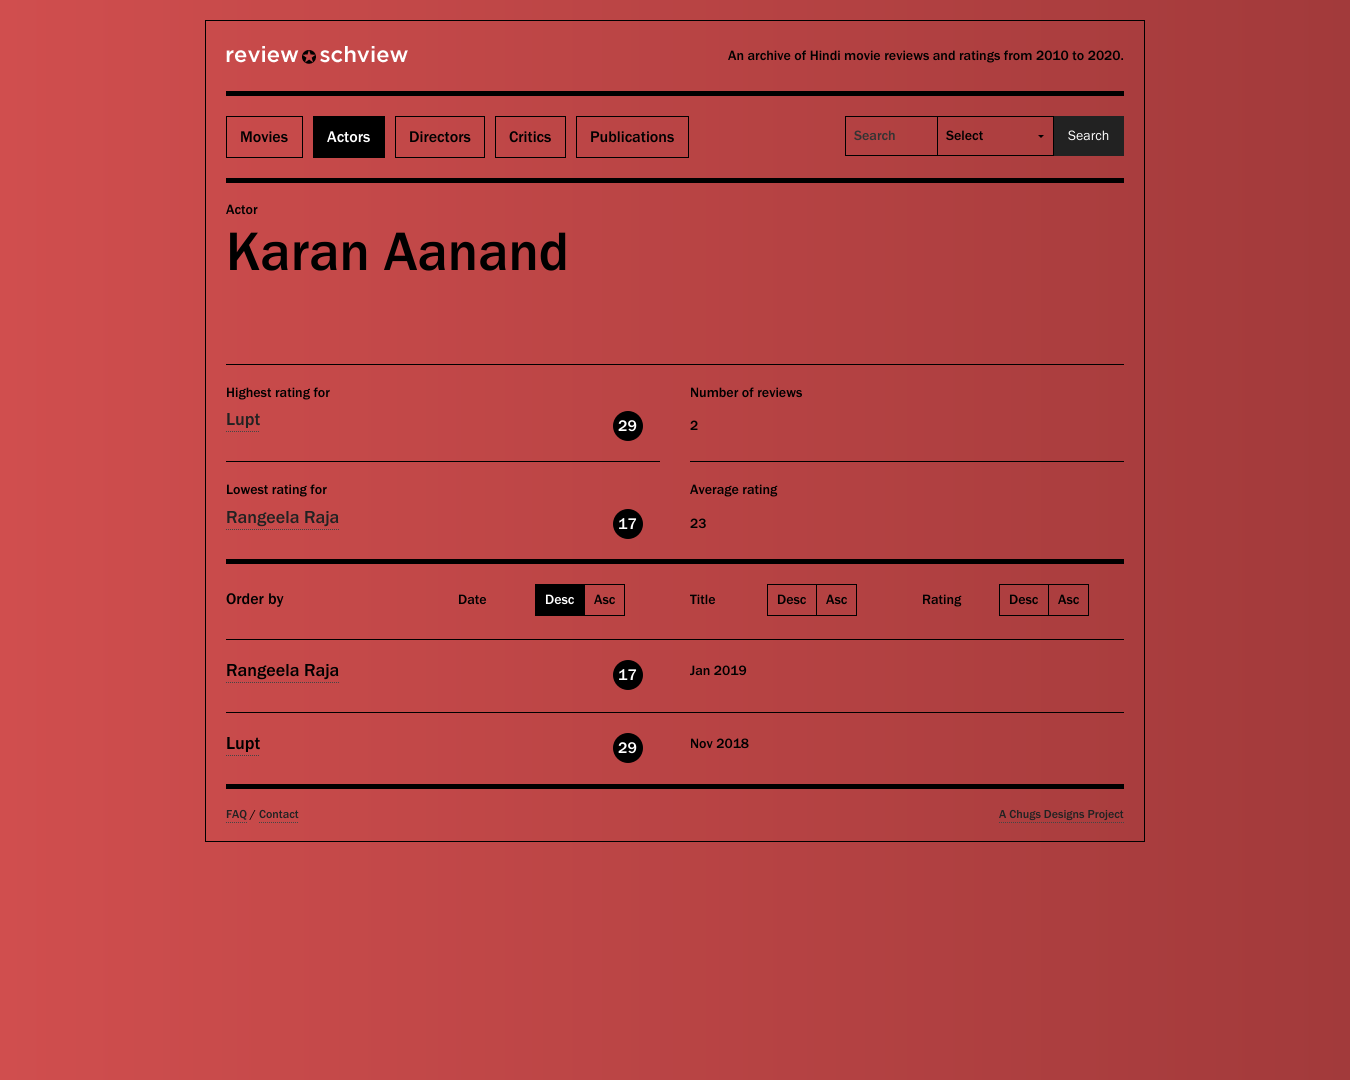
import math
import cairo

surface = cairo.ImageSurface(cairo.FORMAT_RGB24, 1350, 1080)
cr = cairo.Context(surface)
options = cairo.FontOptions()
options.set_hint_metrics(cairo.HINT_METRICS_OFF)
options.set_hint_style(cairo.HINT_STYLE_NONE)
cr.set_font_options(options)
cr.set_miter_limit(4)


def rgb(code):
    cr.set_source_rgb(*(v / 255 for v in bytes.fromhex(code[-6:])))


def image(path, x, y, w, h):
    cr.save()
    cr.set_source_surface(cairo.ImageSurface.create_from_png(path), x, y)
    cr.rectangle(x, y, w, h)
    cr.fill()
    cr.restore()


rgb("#ffffff")
cr.paint()
gradient = cairo.LinearGradient(1350, 540, 0, 540)
gradient.add_color_stop_rgba(0, 0.635, 0.227, 0.231, 1)
gradient.add_color_stop_rgba(1, 0.816, 0.306, 0.306, 1)
cr.set_source(gradient)
cr.rectangle(0, 0, 1350, 1080)
cr.fill()
cr.rectangle(205.5, 20.5, 939, 821)
rgb("#000000")
cr.set_line_width(1)
cr.stroke()
cr.rectangle(226, 178, 898, 5)
cr.fill()
cr.rectangle(226, 91, 898, 5)
cr.fill()
image("img/1.png", 226, 46, 182, 18)
cr.rectangle(226.5, 116.5, 76, 41)
cr.stroke()
cr.rectangle(313, 116, 72, 42)
cr.fill()
cr.rectangle(395.5, 116.5, 89, 41)
cr.stroke()
cr.rectangle(495.5, 116.5, 70, 41)
cr.stroke()
cr.rectangle(576.5, 116.5, 112, 41)
cr.stroke()
cr.rectangle(845.5, 116.5, 92, 39)
cr.stroke()
cr.new_path()
cr.move_to(1044, 135)
cr.line_to(1041, 138)
cr.line_to(1038, 135)
cr.close_path()
cr.fill()
for x, y, w, h, color in [
    (938, 116, 116, 1, "#000000"),
    (1053, 116, 1, 40, "#000000"),
    (938, 155, 116, 1, "#000000"),
    (1054, 116, 70, 40, "#222222"),
    (226, 364, 898, 1, "#000000"),
    (226, 461, 434, 1, "#000000"),
]:
    rgb(color)
    cr.rectangle(x, y, w, h)
    cr.fill()
cr.new_path()
cr.move_to(226, 431.5)
cr.line_to(260, 431.5)
rgb("#454545")
cr.set_dash([1, 1])
cr.stroke()
rgb("#000000")
cr.arc(628, 426, 15, 0, 2 * math.pi)
cr.fill()
cr.new_path()
cr.move_to(226, 529.5)
cr.line_to(339, 529.5)
rgb("#454545")
cr.stroke()
rgb("#000000")
cr.arc(628, 524, 15, 0, 2 * math.pi)
cr.fill()
for x, y, w, h, color in [
    (690, 461, 434, 1, "#000000"),
    (226, 559, 898, 5, "#000000"),
    (535, 584, 49, 32, "#000000"),
]:
    rgb(color)
    cr.rectangle(x, y, w, h)
    cr.fill()
cr.rectangle(584.5, 584.5, 40, 31)
cr.set_dash([])
cr.stroke()
for x, y, w, h, color in [
    (767, 584, 49, 1, "#000000"),
    (767, 615, 49, 1, "#000000"),
    (767, 584, 1, 32, "#000000"),
]:
    rgb(color)
    cr.rectangle(x, y, w, h)
    cr.fill()
cr.rectangle(816.5, 584.5, 40, 31)
cr.stroke()
for x, y, w, h, color in [
    (999, 584, 49, 1, "#000000"),
    (999, 615, 49, 1, "#000000"),
    (999, 584, 1, 32, "#000000"),
]:
    rgb(color)
    cr.rectangle(x, y, w, h)
    cr.fill()
cr.rectangle(1048.5, 584.5, 40, 31)
cr.stroke()
cr.rectangle(226, 639, 898, 1)
cr.fill()
cr.new_path()
cr.move_to(226, 682.5)
cr.line_to(339, 682.5)
rgb("#454545")
cr.set_dash([1, 1])
cr.stroke()
rgb("#000000")
cr.arc(628, 675, 15, 0, 2 * math.pi)
cr.fill()
cr.rectangle(226, 712, 898, 1)
cr.fill()
cr.new_path()
cr.move_to(226, 755.5)
cr.line_to(260, 755.5)
rgb("#454545")
cr.stroke()
rgb("#000000")
cr.arc(628, 748, 15, 0, 2 * math.pi)
cr.fill()
cr.rectangle(226, 784, 898, 5)
cr.fill()
cr.new_path()
cr.move_to(226, 822.5)
cr.line_to(247, 822.5)
rgb("#454545")
cr.stroke()
cr.new_path()
cr.move_to(259, 822.5)
cr.line_to(298, 822.5)
cr.stroke()
cr.new_path()
cr.move_to(999, 822.5)
cr.line_to(1124, 822.5)
cr.stroke()
cr.select_font_face("Franklin Gothic Medium")
cr.set_font_size(14)
rgb("#000000")
cr.move_to(728, 60)
cr.show_text("An archive of Hindi movie reviews and ratings from 2010 to 2020.")
cr.set_font_size(16)
cr.move_to(240, 142)
cr.show_text("Movies")
rgb("#ffffff")
cr.move_to(327, 142)
cr.show_text("Actors")
rgb("#000000")
for x, y, s in [
    (409, 142, "Directors"),
    (509, 142, "Critics"),
    (590, 142, "Publications"),
]:
    cr.move_to(x, y)
    cr.show_text(s)
cr.set_font_size(14)
rgb("#333333")
cr.move_to(854, 140)
cr.show_text("Search")
rgb("#000000")
cr.move_to(946, 140)
cr.show_text("Select")
cr.select_font_face("Franklin Gothic")
rgb("#ffffff")
cr.move_to(1068, 140)
cr.show_text("Search")
cr.select_font_face("Franklin Gothic Medium")
rgb("#000000")
cr.move_to(226, 214)
cr.show_text("Actor")
cr.set_font_size(56)
cr.move_to(226, 270)
cr.show_text("Karan Aanand")
cr.set_font_size(14)
cr.move_to(226, 397)
cr.show_text("Highest rating for")
cr.set_font_size(18)
rgb("#222222")
cr.move_to(226, 425)
cr.show_text("Lupt")
cr.set_font_size(16)
rgb("#ffffff")
cr.move_to(618, 431)
cr.show_text("29")
cr.set_font_size(14)
rgb("#000000")
cr.move_to(226, 494)
cr.show_text("Lowest rating for")
cr.set_font_size(18)
rgb("#222222")
cr.move_to(226, 523)
cr.show_text("Rangeela Raja")
cr.set_font_size(16)
rgb("#ffffff")
cr.move_to(618, 529)
cr.show_text("17")
cr.set_font_size(14)
rgb("#000000")
for x, y, s in [
    (690, 397, "Number of reviews"),
    (690, 430, "2"),
    (690, 494, "Average rating"),
    (690, 528, "23"),
]:
    cr.move_to(x, y)
    cr.show_text(s)
cr.set_font_size(16)
cr.move_to(226, 604)
cr.show_text("Order by")
cr.set_font_size(14)
cr.move_to(458, 604)
cr.show_text("Date")
rgb("#ffffff")
cr.move_to(545, 604)
cr.show_text("Desc")
rgb("#000000")
for x, y, s in [
    (594, 604, "Asc"),
    (690, 604, "Title"),
    (777, 604, "Desc"),
    (826, 604, "Asc"),
    (922, 604, "Rating"),
    (1009, 604, "Desc"),
    (1058, 604, "Asc"),
]:
    cr.move_to(x, y)
    cr.show_text(s)
cr.set_font_size(18)
cr.move_to(226, 676)
cr.show_text("Rangeela Raja")
cr.set_font_size(16)
rgb("#ffffff")
cr.move_to(618, 680)
cr.show_text("17")
cr.set_font_size(14)
rgb("#000000")
cr.move_to(690, 675)
cr.show_text("Jan 2019")
cr.set_font_size(18)
cr.move_to(226, 749)
cr.show_text("Lupt")
cr.set_font_size(16)
rgb("#ffffff")
cr.move_to(618, 753)
cr.show_text("29")
cr.set_font_size(14)
rgb("#000000")
cr.move_to(690, 748)
cr.show_text("Nov 2018")
cr.set_font_size(12)
rgb("#222222")
cr.move_to(226, 818)
cr.show_text("FAQ")
rgb("#000000")
cr.move_to(250, 818)
cr.show_text("/")
rgb("#222222")
cr.move_to(259, 818)
cr.show_text("Contact")
cr.move_to(999, 818)
cr.show_text("A Chugs Designs Project")
surface.write_to_png("page.png")
